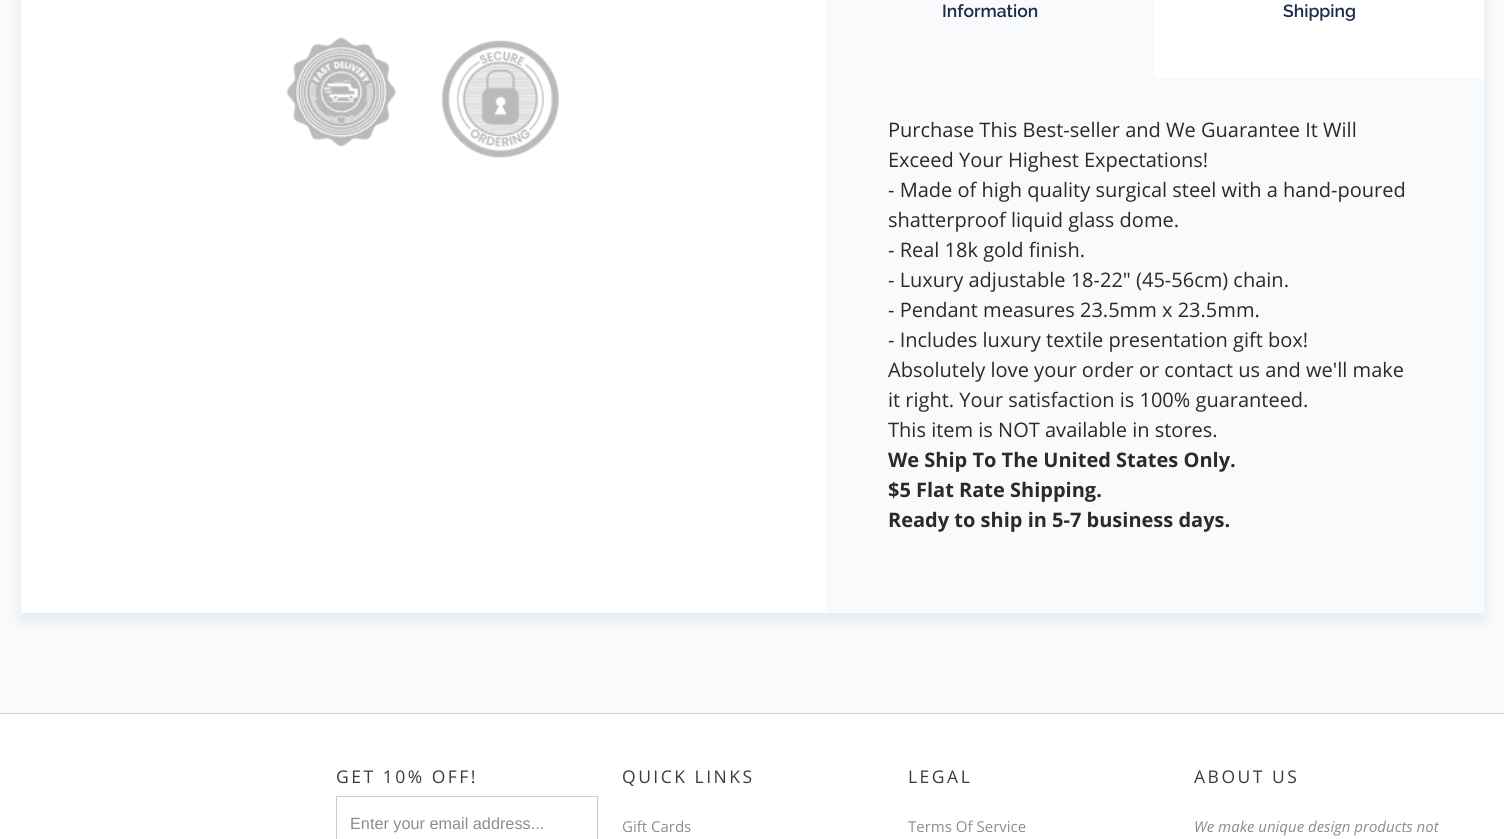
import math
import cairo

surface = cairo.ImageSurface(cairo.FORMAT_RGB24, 1504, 839)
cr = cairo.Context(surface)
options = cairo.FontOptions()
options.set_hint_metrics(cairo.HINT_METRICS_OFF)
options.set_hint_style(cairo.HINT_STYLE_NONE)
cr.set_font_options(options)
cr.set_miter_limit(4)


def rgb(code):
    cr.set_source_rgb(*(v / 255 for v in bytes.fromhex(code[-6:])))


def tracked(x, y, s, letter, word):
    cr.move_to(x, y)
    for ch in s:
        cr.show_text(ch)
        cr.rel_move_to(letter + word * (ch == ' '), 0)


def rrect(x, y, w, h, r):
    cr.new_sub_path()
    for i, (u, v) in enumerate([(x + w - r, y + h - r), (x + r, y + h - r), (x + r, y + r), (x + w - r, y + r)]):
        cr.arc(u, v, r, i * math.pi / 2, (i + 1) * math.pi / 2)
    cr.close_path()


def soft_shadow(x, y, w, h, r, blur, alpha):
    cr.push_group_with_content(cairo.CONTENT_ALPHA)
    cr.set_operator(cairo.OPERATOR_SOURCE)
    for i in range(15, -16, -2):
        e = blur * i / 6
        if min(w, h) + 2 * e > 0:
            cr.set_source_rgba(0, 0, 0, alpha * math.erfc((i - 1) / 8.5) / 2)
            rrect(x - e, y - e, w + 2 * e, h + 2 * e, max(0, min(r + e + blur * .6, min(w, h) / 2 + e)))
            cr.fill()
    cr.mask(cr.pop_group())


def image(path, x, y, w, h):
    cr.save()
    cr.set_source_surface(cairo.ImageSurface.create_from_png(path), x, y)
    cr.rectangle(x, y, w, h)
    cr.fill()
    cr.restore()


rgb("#ffffff")
cr.paint()
rgb("#f9fafb")
cr.rectangle(0, 0, 1504, 713)
cr.fill()
rgb("#dbe5ee")
soft_shadow(21, -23, 1463, 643, 0, 7.5, 0.8)
rgb("#ffffff")
cr.rectangle(21, 0, 805, 613)
cr.fill()
image("img/1.png", 286, 37, 111, 110)
image("img/2.png", 441, 40, 118, 118)
for x, y, w, h, color in [
    (826, 78, 658, 535, "#f9fafb"),
    (1155, 0, 329, 78, "#ffffff"),
    (826, 0, 329, 78, "#f9fafb"),
    (0, 713, 1504, 1, "#cccccc"),
]:
    rgb(color)
    cr.rectangle(x, y, w, h)
    cr.fill()
cr.rectangle(336.5, 796.5, 261, 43)
cr.set_line_width(1)
cr.stroke()
cr.select_font_face("Raleway SemiBold")
cr.set_font_size(17.5)
rgb("#1b2b48")
cr.move_to(942, 17)
cr.show_text("Information")
cr.move_to(1283, 17)
cr.show_text("Shipping")
cr.select_font_face("Open Sans")
cr.set_font_size(20)
rgb("#2b2a2a")
for x, y, s in [
    (888, 137, "Purchase This Best-seller and We Guarantee It Will"),
    (888, 167, "Exceed Your Highest Expectations!"),
    (888, 197, "- Made of high quality surgical steel with a hand-poured"),
    (888, 227, "shatterproof liquid glass dome."),
    (888, 257, "- Real 18k gold finish."),
    (888, 287, "- Luxury adjustable 18-22\" (45-56cm) chain."),
    (888, 317, "- Pendant measures 23.5mm x 23.5mm."),
    (888, 347, "- Includes luxury textile presentation gift box!"),
    (888, 377, "Absolutely love your order or contact us and we'll make"),
    (888, 407, "it right. Your satisfaction is 100% guaranteed."),
    (888, 437, "This item is NOT available in stores."),
]:
    cr.move_to(x, y)
    cr.show_text(s)
cr.select_font_face("Open Sans", cairo.FONT_SLANT_NORMAL, cairo.FONT_WEIGHT_BOLD)
for x, y, s in [
    (888, 467, "We Ship To The United States Only."),
    (888, 497, "$5 Flat Rate Shipping."),
    (888, 527, "Ready to ship in 5-7 business days."),
]:
    cr.move_to(x, y)
    cr.show_text(s)
cr.select_font_face("Open Sans")
cr.set_font_size(17.5)
rgb("#3b3b3b")
tracked(336, 783, "GET 10% OFF!", 2.5, 0)
cr.select_font_face("Liberation Sans")
cr.set_font_size(16.25)
rgb("#8d8d8d")
cr.move_to(350, 829)
cr.show_text("Enter your email address...")
cr.select_font_face("Open Sans")
cr.set_font_size(17.5)
rgb("#3b3b3b")
tracked(622, 783, "QUICK LINKS", 2.5, 0)
cr.set_font_size(15)
rgb("#8d8d8d")
cr.move_to(622, 832)
cr.show_text("Gift Cards")
cr.set_font_size(17.5)
rgb("#3b3b3b")
tracked(908, 783, "LEGAL", 2.5, 0)
cr.set_font_size(15)
rgb("#8d8d8d")
cr.move_to(908, 832)
cr.show_text("Terms Of Service")
cr.set_font_size(17.5)
rgb("#3b3b3b")
tracked(1194, 783, "ABOUT US", 2.5, 0)
cr.select_font_face("Open Sans", cairo.FONT_SLANT_ITALIC)
cr.set_font_size(15)
rgb("#8d8d8d")
cr.move_to(1194, 832)
cr.show_text("We make unique design products not")
surface.write_to_png("page.png")
